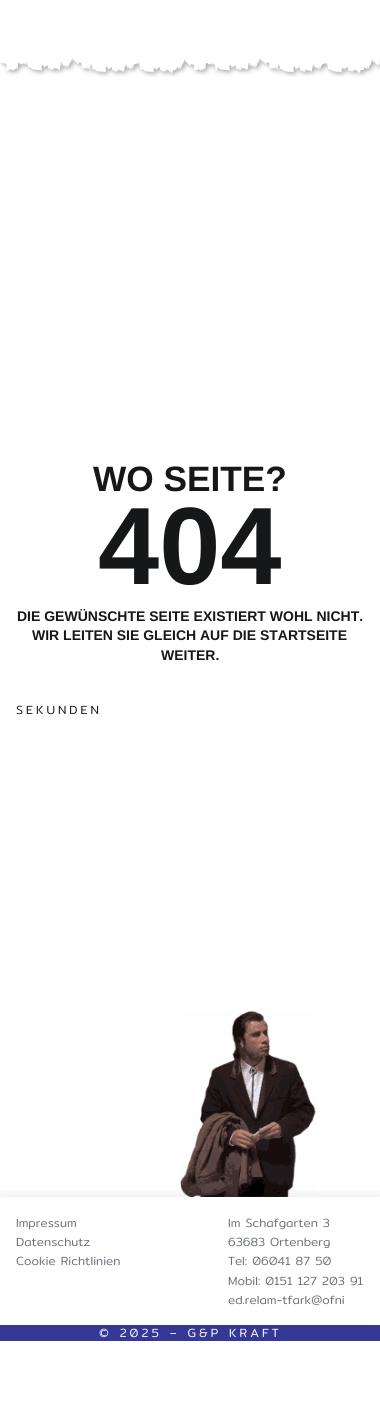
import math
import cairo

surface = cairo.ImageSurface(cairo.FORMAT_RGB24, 380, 1408)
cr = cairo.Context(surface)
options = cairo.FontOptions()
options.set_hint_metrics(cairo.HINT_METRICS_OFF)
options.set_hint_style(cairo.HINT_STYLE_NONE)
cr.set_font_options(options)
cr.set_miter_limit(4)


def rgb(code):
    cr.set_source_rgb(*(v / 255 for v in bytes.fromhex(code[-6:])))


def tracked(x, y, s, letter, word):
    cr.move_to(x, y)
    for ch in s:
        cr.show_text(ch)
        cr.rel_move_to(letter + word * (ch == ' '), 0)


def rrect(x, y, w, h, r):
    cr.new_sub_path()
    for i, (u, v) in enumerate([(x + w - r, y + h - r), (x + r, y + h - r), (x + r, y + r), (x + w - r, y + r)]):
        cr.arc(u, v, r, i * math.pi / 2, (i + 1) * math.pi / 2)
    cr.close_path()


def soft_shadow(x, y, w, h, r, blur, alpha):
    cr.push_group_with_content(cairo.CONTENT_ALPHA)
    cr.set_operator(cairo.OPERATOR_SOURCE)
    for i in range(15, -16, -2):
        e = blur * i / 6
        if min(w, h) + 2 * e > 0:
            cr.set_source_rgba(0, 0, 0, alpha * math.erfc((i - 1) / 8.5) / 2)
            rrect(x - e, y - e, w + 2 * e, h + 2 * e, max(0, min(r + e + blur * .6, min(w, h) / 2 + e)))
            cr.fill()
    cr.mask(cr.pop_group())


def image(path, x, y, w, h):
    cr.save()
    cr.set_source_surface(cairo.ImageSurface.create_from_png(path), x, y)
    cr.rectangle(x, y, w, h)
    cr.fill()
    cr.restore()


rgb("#ffffff")
cr.paint()
image("img/1.png", 0, 57, 380, 20)
image("img/2.png", 180, 1011, 136, 186)
cr.save()
cr.rectangle(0, 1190, 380, 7)
cr.clip()
rgb("#000000")
soft_shadow(0, 1197, 380, 128, 0, 8, 0.1)
cr.restore()
rgb("#363896")
cr.rectangle(0, 1325, 380, 16)
cr.fill()
cr.select_font_face("Liberation Sans", cairo.FONT_SLANT_NORMAL, cairo.FONT_WEIGHT_BOLD)
cr.set_font_size(35.25)
rgb("#161719")
cr.move_to(93, 491)
cr.show_text("WO SEITE?")
cr.set_font_size(110)
cr.move_to(98, 584)
cr.show_text("404")
cr.set_font_size(14)
for x, y, s in [
    (17, 621, "DIE GEWÜNSCHTE SEITE EXISTIERT WOHL NICHT."),
    (32, 640, "WIR LEITEN SIE GLEICH AUF DIE STARTSEITE"),
    (161, 660, "WEITER."),
]:
    cr.move_to(x, y)
    cr.show_text(s)
cr.select_font_face("Mitr Light")
cr.set_font_size(12)
tracked(16, 714, "SEKUNDEN", 3, 0)
rgb("#6c7178")
for x, y, s in [
    (16, 1227, "Impressum"),
    (16, 1246, "Datenschutz"),
    (16, 1265, "Cookie Richtlinien"),
    (228, 1227, "Im Schafgarten 3"),
    (228, 1246, "63683 Ortenberg"),
    (228, 1265, "Tel: 06041 87 50"),
    (228, 1285, "Mobil: 0151 127 203 91"),
    (228, 1304, "ed.relam-tfark@ofni"),
]:
    cr.move_to(x, y)
    cr.show_text(s)
rgb("#ffffff")
tracked(99, 1337, "© 2025 – G&P KRAFT", 3, 0)
surface.write_to_png("page.png")
